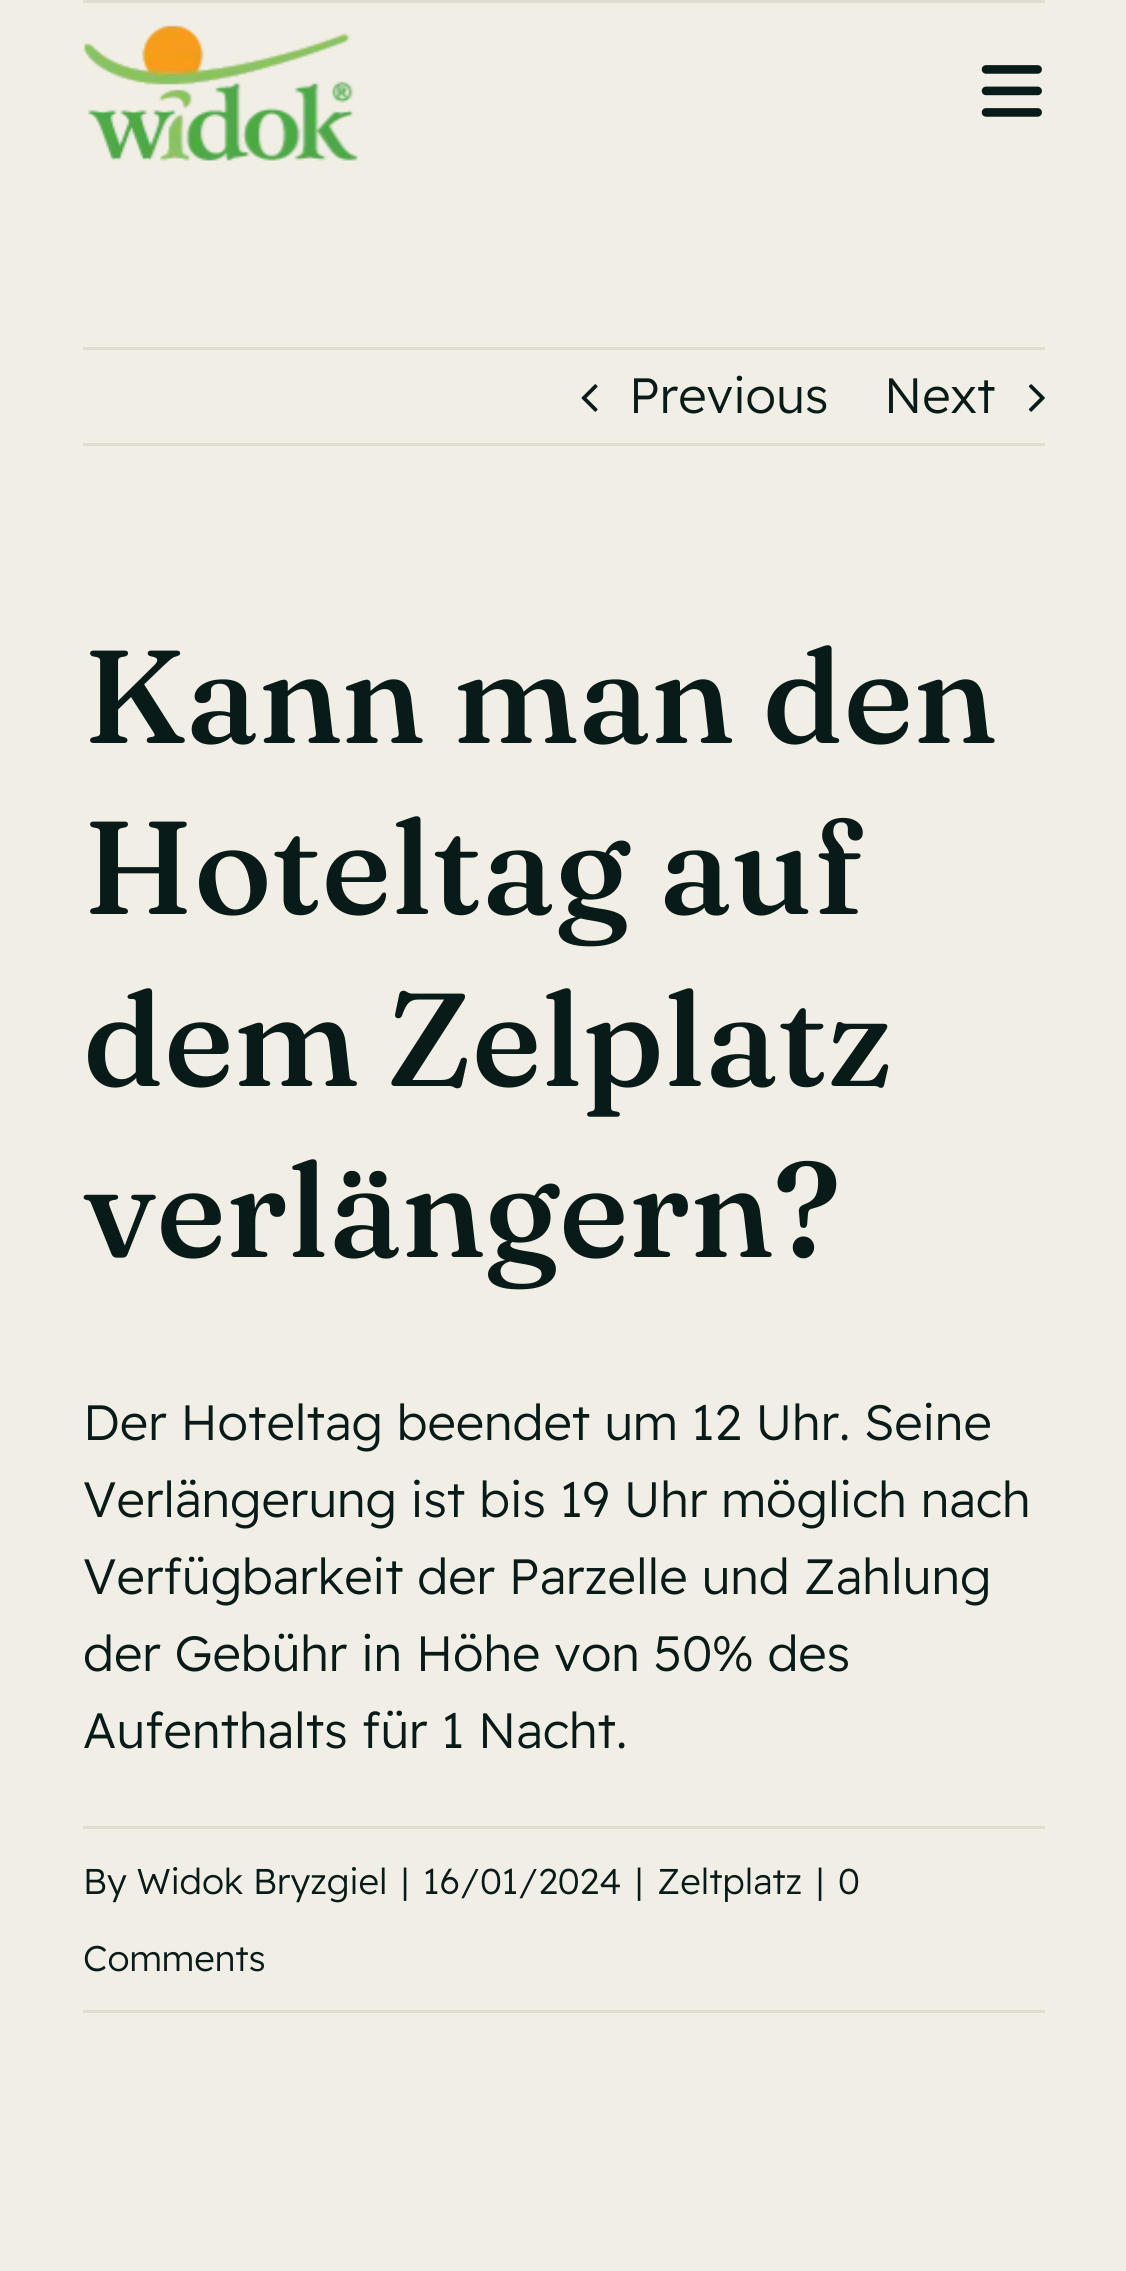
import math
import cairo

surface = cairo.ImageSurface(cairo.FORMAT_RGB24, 1126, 2271)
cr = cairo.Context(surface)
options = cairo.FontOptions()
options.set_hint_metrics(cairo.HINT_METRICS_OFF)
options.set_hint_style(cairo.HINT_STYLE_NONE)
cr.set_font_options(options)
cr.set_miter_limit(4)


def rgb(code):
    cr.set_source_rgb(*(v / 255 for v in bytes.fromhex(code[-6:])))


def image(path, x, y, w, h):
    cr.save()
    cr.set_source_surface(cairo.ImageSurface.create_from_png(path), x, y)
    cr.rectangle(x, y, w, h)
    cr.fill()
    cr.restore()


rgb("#f0eee5")
cr.paint()
rgb("#dfddd2")
cr.rectangle(83, 0, 962, 3)
cr.fill()
image("img/1.png", 84, 25, 274, 136)
image("img/2.png", 981, 65, 61, 52)
cr.rectangle(83, 347, 962, 3)
cr.fill()
cr.rectangle(83, 443, 962, 3)
cr.fill()
image("img/3.png", 581, 384, 17, 28)
image("img/4.png", 1028, 384, 17, 28)
cr.rectangle(83, 1826, 962, 3)
cr.fill()
cr.rectangle(83, 2010, 962, 3)
cr.fill()
cr.select_font_face("Readex Pro Light")
cr.set_font_size(49.5)
rgb("#091b18")
cr.move_to(629, 413)
cr.show_text("Previous")
cr.move_to(884, 413)
cr.show_text("Next")
cr.select_font_face("Fraunces Medium")
cr.set_font_size(132)
for x, y, s in [
    (83, 743, "Kann man den"),
    (83, 914, "Hoteltag auf"),
    (83, 1086, "dem Zelplatz"),
    (83, 1257, "verlängern?"),
]:
    cr.move_to(x, y)
    cr.show_text(s)
cr.select_font_face("Readex Pro Light")
cr.set_font_size(49.5)
for x, y, s in [
    (83, 1440, "Der Hoteltag beendet um 12 Uhr. Seine"),
    (83, 1517, "Verlängerung ist bis 19 Uhr möglich nach"),
    (83, 1594, "Verfügbarkeit der Parzelle und Zahlung"),
    (83, 1671, "der Gebühr in Höhe von 50% des"),
    (83, 1748, "Aufenthalts für 1 Nacht."),
]:
    cr.move_to(x, y)
    cr.show_text(s)
cr.set_font_size(35.75)
for x, y, s in [
    (83, 1894, "By Widok Bryzgiel"),
    (401, 1894, "|"),
    (423, 1894, "16/01/2024"),
    (635, 1894, "|"),
    (657, 1894, "Zeltplatz"),
    (816, 1894, "|"),
    (838, 1894, "0"),
    (83, 1971, "Comments"),
]:
    cr.move_to(x, y)
    cr.show_text(s)
surface.write_to_png("page.png")
